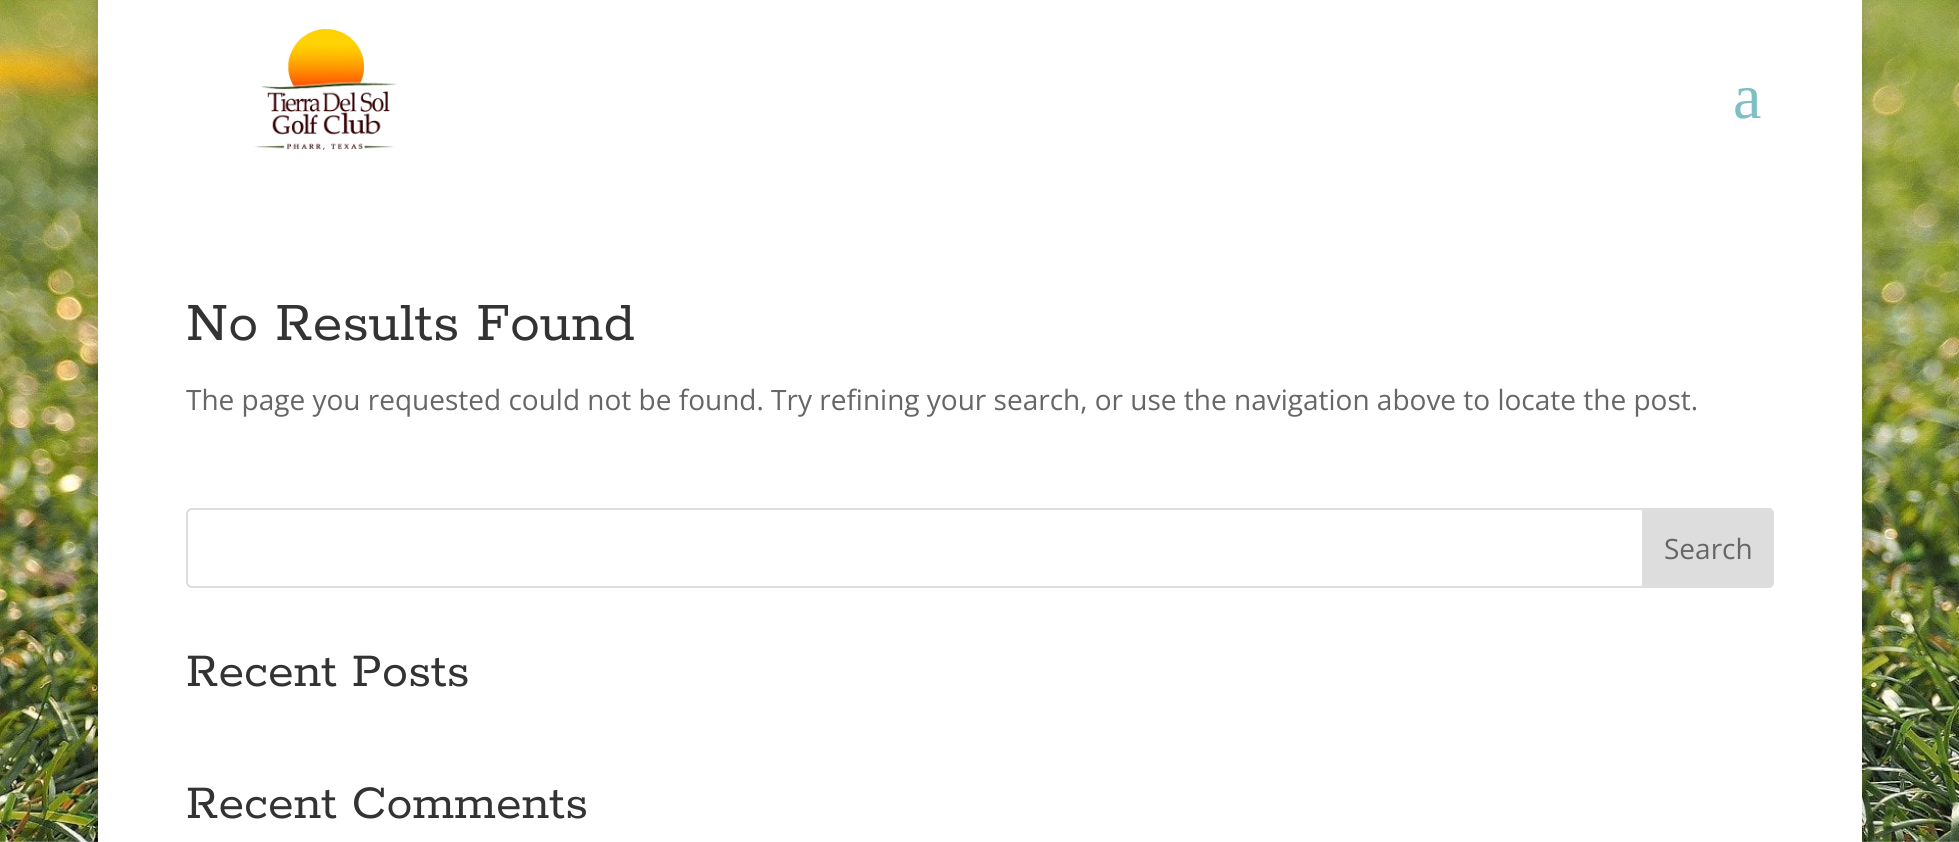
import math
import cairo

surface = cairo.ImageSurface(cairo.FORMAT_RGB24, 1959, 842)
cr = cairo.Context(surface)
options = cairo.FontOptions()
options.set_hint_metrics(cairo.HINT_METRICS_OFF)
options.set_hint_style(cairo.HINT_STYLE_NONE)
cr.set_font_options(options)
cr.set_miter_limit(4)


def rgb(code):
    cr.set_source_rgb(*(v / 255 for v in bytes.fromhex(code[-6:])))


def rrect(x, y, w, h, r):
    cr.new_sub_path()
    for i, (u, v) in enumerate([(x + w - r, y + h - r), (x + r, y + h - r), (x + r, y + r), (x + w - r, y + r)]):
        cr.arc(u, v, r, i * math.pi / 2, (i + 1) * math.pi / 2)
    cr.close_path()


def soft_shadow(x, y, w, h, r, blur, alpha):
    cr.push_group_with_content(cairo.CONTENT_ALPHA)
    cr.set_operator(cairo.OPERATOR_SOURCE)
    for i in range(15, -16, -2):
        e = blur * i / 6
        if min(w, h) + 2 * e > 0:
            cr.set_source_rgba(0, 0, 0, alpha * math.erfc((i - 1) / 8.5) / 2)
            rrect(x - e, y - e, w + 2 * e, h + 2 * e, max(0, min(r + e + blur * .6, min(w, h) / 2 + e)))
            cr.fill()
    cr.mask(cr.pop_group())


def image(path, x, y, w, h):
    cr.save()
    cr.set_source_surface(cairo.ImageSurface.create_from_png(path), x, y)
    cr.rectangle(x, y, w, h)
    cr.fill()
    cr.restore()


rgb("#ffffff")
cr.paint()
image("img/1.png", 0, 0, 1959, 842)
rgb("#000000")
soft_shadow(98, 0, 1764, 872, 0, 10, 0.2)
rgb("#ffffff")
cr.rectangle(98, 0, 1764, 842)
cr.fill()
image("img/2.png", 254, 28, 142, 122)
rrect(187, 509, 1586, 78, 5)
rgb("#dddddd")
cr.stroke()
cr.new_path()
cr.move_to(1643, 509)
cr.line_to(1768, 509)
cr.curve_to(1771, 509, 1773, 511, 1773, 514)
cr.line_to(1773, 582)
cr.curve_to(1773, 585, 1771, 587, 1768, 587)
cr.line_to(1643, 587)
cr.close_path()
cr.fill_preserve()
cr.stroke()
cr.select_font_face("Liberation Serif")
cr.set_font_size(64)
rgb("#7ebec5")
cr.move_to(1733, 118)
cr.show_text("a")
cr.select_font_face("Rokkitt")
cr.set_font_size(60)
rgb("#333333")
cr.move_to(186, 340)
cr.show_text("No Results Found")
cr.select_font_face("Open Sans")
cr.set_font_size(28)
rgb("#666666")
cr.move_to(186, 410)
cr.show_text("The page you requested could not be found. Try refining your search, or use the navigation above to locate the post.")
cr.move_to(1664, 559)
cr.show_text("Search")
cr.select_font_face("Rokkitt")
cr.set_font_size(52)
rgb("#333333")
cr.move_to(186, 686)
cr.show_text("Recent Posts")
cr.move_to(186, 818)
cr.show_text("Recent Comments")
surface.write_to_png("page.png")
